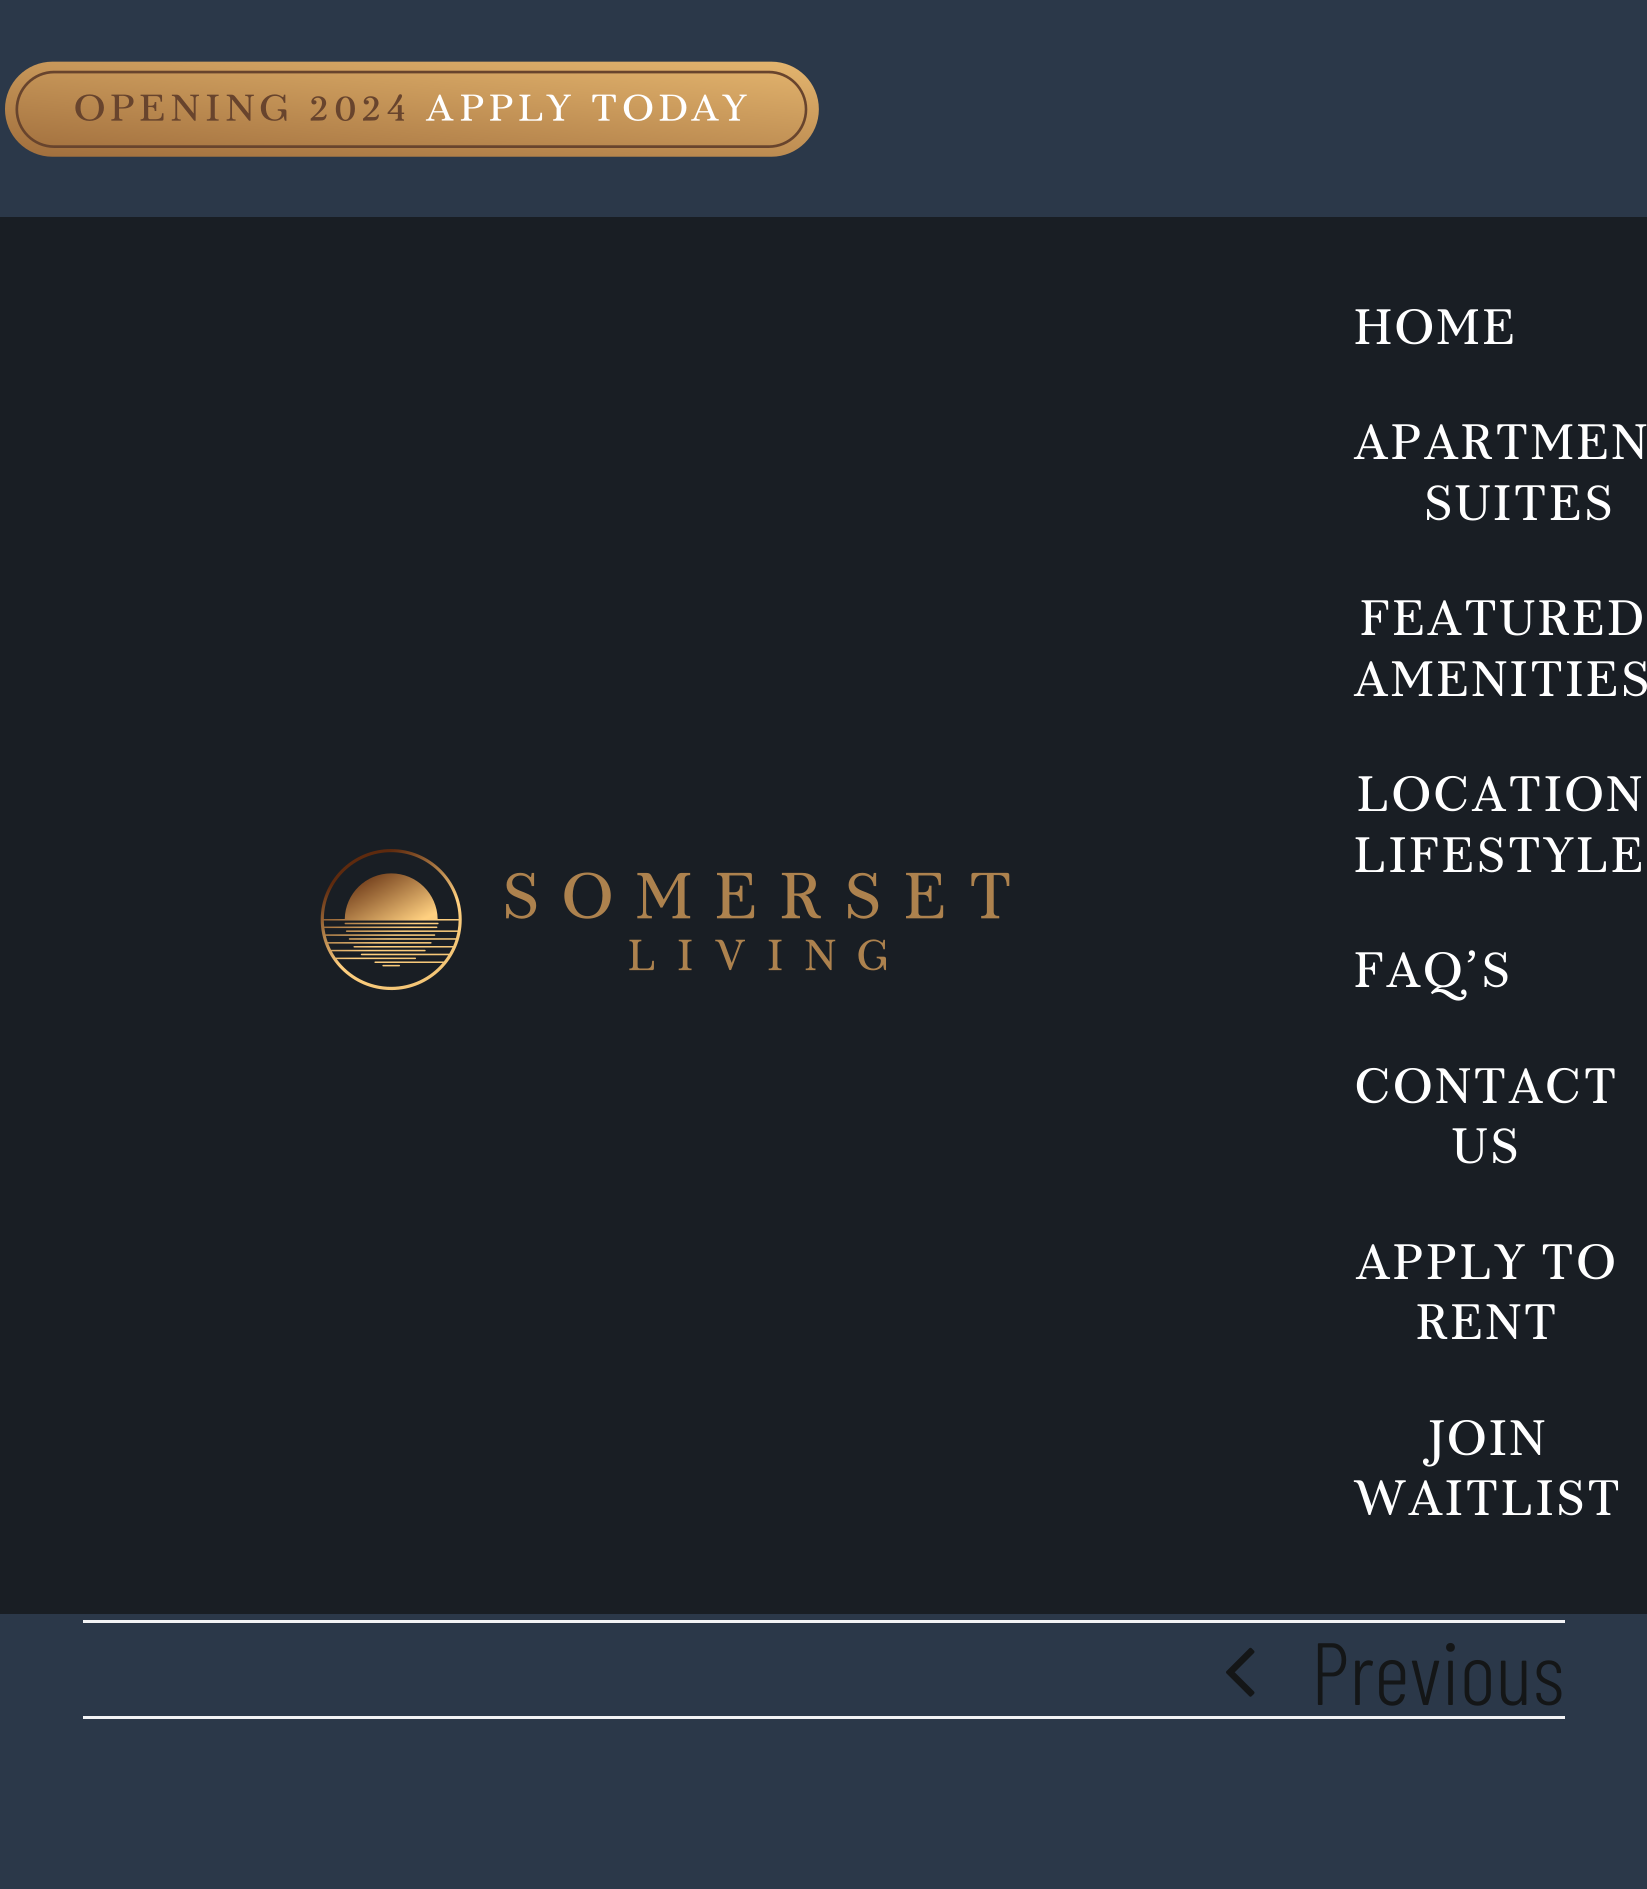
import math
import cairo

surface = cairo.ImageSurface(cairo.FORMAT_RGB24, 1647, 1889)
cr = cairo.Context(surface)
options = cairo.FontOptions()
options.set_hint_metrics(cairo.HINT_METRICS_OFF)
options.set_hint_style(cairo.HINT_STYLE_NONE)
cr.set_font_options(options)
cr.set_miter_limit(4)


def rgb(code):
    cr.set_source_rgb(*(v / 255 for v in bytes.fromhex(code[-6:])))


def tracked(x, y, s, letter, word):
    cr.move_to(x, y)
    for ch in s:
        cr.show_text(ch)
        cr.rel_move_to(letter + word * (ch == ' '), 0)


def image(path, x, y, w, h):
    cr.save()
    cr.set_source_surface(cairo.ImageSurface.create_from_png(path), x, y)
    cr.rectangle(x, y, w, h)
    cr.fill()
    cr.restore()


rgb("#2b3849")
cr.paint()
image("img/1.png", 5, 61, 814, 96)
rgb("#191e24")
cr.rectangle(0, 217, 1647, 1397)
cr.fill()
image("img/2.png", 320, 849, 690, 142)
rgb("#f2f3f5")
cr.rectangle(83, 1620, 1482, 3)
cr.fill()
cr.rectangle(83, 1716, 1482, 3)
cr.fill()
image("img/3.png", 1226, 1647, 29, 50)
cr.select_font_face("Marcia")
cr.set_font_size(49.5)
rgb("#ffffff")
for x, y, s in [
    (1354, 344, "HOME"),
    (1354, 459, "APARTMEN"),
    (1424, 520, "SUITES"),
    (1360, 635, "FEATURED"),
    (1354, 696, "AMENITIES"),
    (1357, 811, "LOCATION"),
    (1354, 872, "LIFESTYLE"),
    (1354, 987, "FAQ’S"),
    (1355, 1103, "CONTACT"),
    (1452, 1163, "US"),
    (1356, 1279, "APPLY TO"),
    (1416, 1339, "RENT"),
    (1429, 1455, "JOIN"),
    (1354, 1515, "WAITLIST"),
]:
    tracked(x, y, s, 2.75, 0)
cr.select_font_face("Barlow Condensed Light")
cr.set_font_size(88)
rgb("#141617")
cr.move_to(1311, 1705)
cr.show_text("Previous")
surface.write_to_png("page.png")
